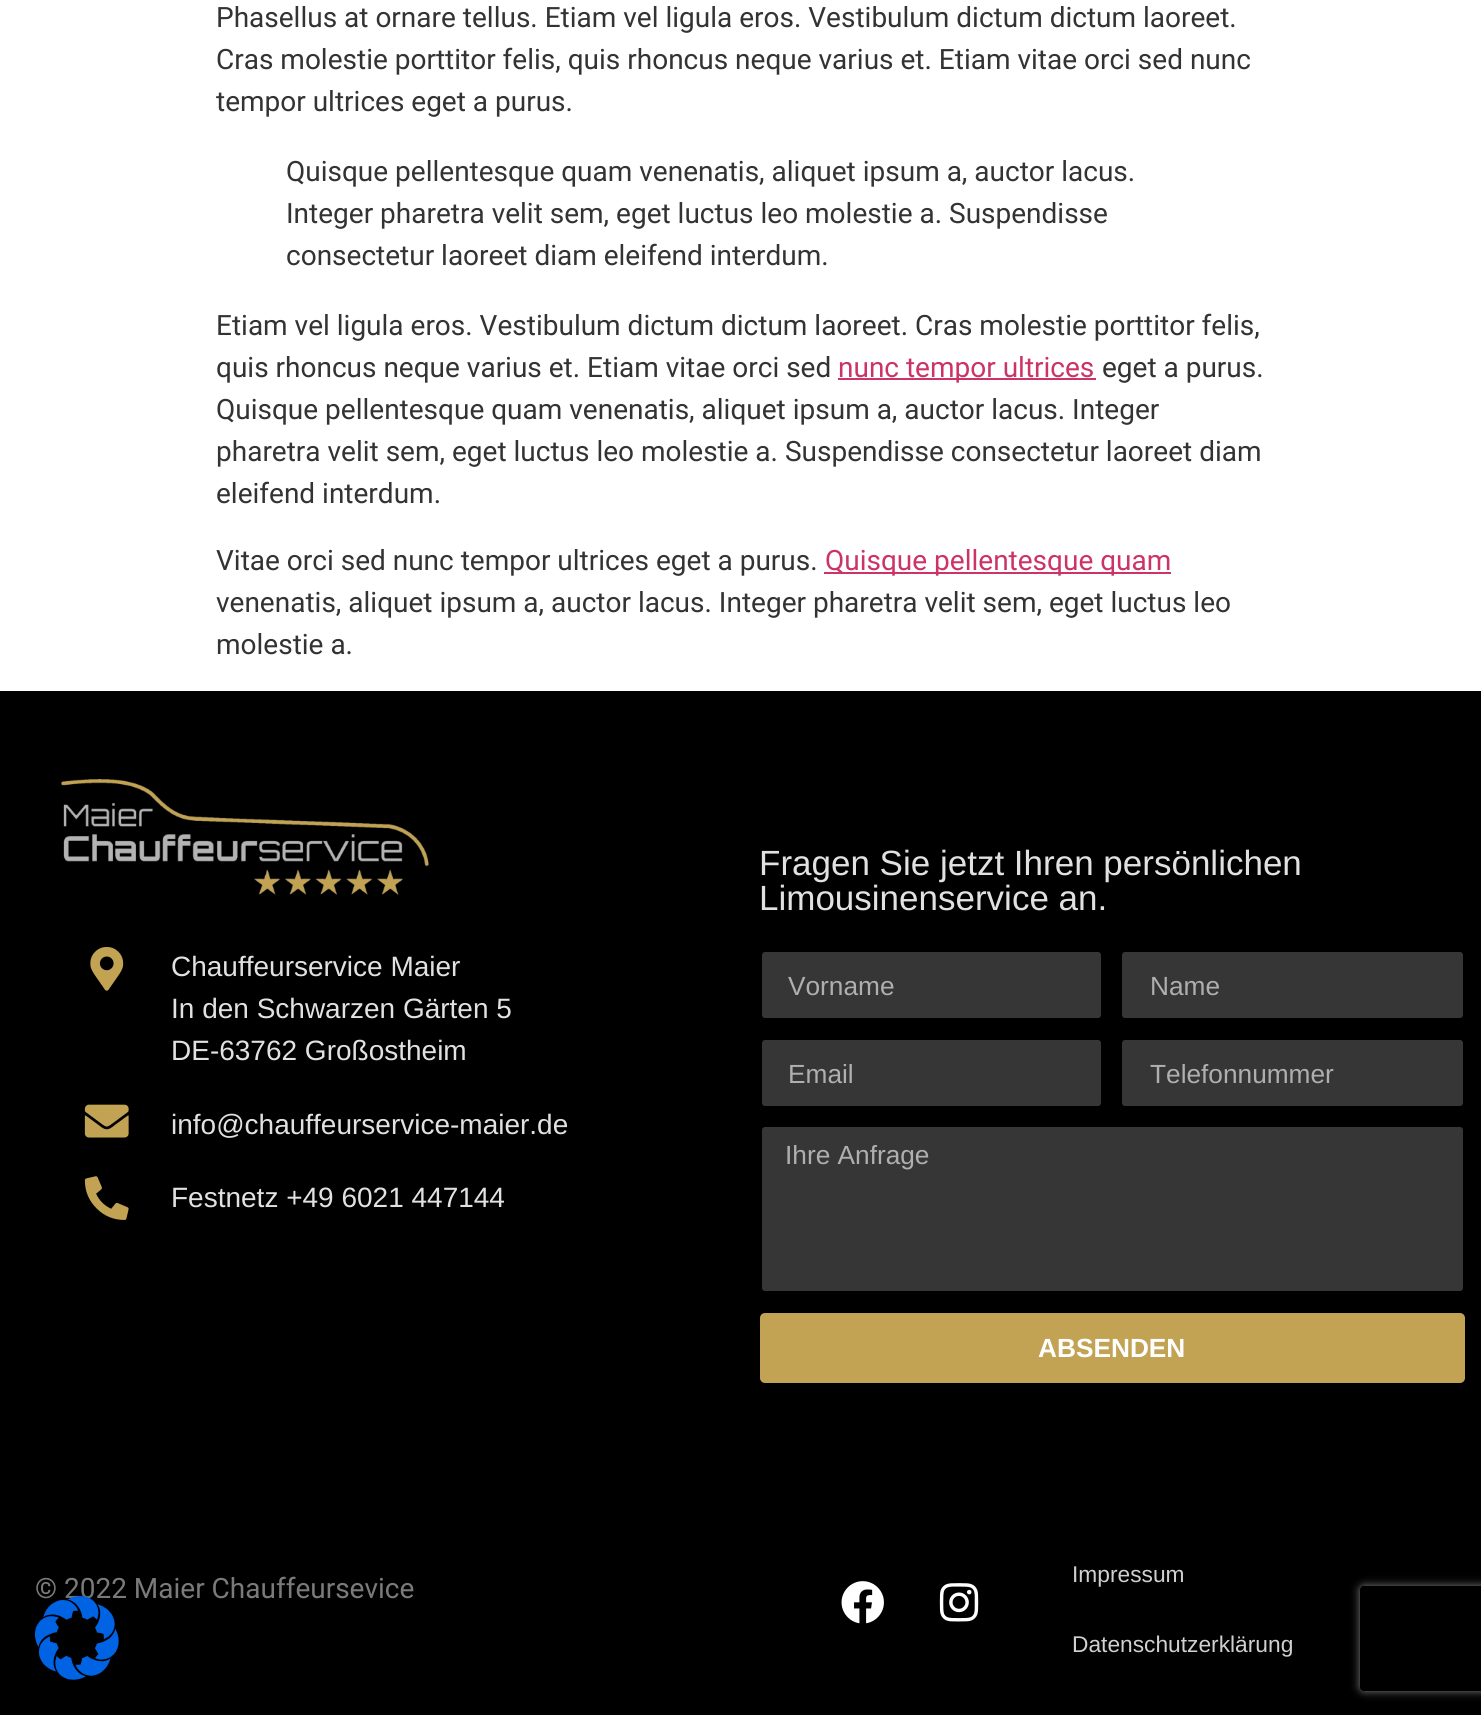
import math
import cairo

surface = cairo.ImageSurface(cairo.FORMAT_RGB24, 1481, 1715)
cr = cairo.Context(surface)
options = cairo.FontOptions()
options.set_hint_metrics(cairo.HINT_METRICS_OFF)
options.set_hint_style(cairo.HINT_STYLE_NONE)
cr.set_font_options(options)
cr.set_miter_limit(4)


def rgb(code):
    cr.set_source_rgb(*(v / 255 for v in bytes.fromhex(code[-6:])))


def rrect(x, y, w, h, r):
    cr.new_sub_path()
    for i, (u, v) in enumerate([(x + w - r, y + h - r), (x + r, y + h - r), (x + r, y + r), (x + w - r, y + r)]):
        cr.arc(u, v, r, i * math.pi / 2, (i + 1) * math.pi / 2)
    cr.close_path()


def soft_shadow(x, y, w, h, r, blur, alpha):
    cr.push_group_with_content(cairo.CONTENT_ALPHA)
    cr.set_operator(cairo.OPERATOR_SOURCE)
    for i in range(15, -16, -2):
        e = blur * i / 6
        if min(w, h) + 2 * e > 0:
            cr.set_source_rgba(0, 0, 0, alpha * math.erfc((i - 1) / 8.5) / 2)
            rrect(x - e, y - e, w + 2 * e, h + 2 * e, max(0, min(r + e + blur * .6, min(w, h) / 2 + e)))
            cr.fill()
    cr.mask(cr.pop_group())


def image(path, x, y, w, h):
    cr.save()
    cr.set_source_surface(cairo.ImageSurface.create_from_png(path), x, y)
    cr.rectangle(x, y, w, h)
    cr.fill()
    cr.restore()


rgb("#ffffff")
cr.paint()
for x, y, w, h, color in [
    (838, 378, 258, 2, "#cc3366"),
    (824, 572, 347, 2, "#cc3366"),
    (0, 691, 1481, 1024, "#000000"),
]:
    rgb(color)
    cr.rectangle(x, y, w, h)
    cr.fill()
image("img/1.png", 61, 779, 368, 116)
image("img/2.png", 90, 947, 34, 44)
image("img/3.png", 84, 1104, 45, 34)
image("img/4.png", 84, 1176, 45, 44)
rgb("#363636")
rrect(761, 951, 341, 68, 4)
cr.fill_preserve()
rgb("#000000")
cr.stroke()
rgb("#363636")
rrect(1121, 951, 343, 68, 4)
cr.fill_preserve()
rgb("#000000")
cr.stroke()
rgb("#363636")
rrect(761, 1039, 341, 68, 4)
cr.fill_preserve()
rgb("#000000")
cr.stroke()
rgb("#363636")
rrect(1121, 1039, 343, 68, 4)
cr.fill_preserve()
rgb("#000000")
cr.stroke()
rgb("#363636")
rrect(761, 1126, 703, 166, 4)
cr.fill_preserve()
rgb("#000000")
cr.stroke()
rgb("#c2a353")
rrect(760, 1313, 705, 70, 5)
cr.fill()
cr.save()
cr.set_fill_rule(cairo.FILL_RULE_EVEN_ODD)
cr.new_path()
cr.move_to(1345, 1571)
cr.line_to(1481, 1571)
cr.line_to(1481, 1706)
cr.line_to(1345, 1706)
cr.close_path()
cr.move_to(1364, 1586)
cr.line_to(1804, 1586)
cr.curve_to(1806, 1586, 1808, 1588, 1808, 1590)
cr.line_to(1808, 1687)
cr.curve_to(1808, 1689, 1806, 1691, 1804, 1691)
cr.line_to(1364, 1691)
cr.curve_to(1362, 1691, 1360, 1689, 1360, 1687)
cr.line_to(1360, 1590)
cr.curve_to(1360, 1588, 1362, 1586, 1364, 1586)
cr.close_path()
cr.clip()
rgb("#808080")
soft_shadow(1360, 1586, 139, 105, 4, 4.5, 1)
cr.restore()
image("img/5.png", 841, 1581, 43, 43)
image("img/6.png", 939, 1583, 40, 39)
cr.select_font_face("Roboto")
cr.set_font_size(28)
rgb("#333333")
for x, y, s in [
    (216, 27, "Phasellus at ornare tellus. Etiam vel ligula eros. Vestibulum dictum dictum laoreet."),
    (216, 69, "Cras molestie porttitor felis, quis rhoncus neque varius et. Etiam vitae orci sed nunc"),
    (216, 111, "tempor ultrices eget a purus."),
    (286, 181, "Quisque pellentesque quam venenatis, aliquet ipsum a, auctor lacus."),
    (286, 223, "Integer pharetra velit sem, eget luctus leo molestie a. Suspendisse"),
    (286, 265, "consectetur laoreet diam eleifend interdum."),
    (216, 335, "Etiam vel ligula eros. Vestibulum dictum dictum laoreet. Cras molestie porttitor felis,"),
    (216, 377, "quis rhoncus neque varius et. Etiam vitae orci sed"),
]:
    cr.move_to(x, y)
    cr.show_text(s)
rgb("#cc3366")
cr.move_to(838, 377)
cr.show_text("nunc tempor ultrices")
rgb("#333333")
for x, y, s in [
    (1102, 377, "eget a purus."),
    (216, 419, "Quisque pellentesque quam venenatis, aliquet ipsum a, auctor lacus. Integer"),
    (216, 461, "pharetra velit sem, eget luctus leo molestie a. Suspendisse consectetur laoreet diam"),
    (216, 503, "eleifend interdum."),
    (216, 570, "Vitae orci sed nunc tempor ultrices eget a purus."),
]:
    cr.move_to(x, y)
    cr.show_text(s)
rgb("#cc3366")
cr.move_to(825, 570)
cr.show_text("Quisque pellentesque quam")
rgb("#333333")
cr.move_to(216, 612)
cr.show_text("venenatis, aliquet ipsum a, auctor lacus. Integer pharetra velit sem, eget luctus leo")
cr.move_to(216, 654)
cr.show_text("molestie a.")
cr.select_font_face("Liberation Sans")
rgb("#e1e1e1")
for x, y, s in [
    (171, 976, "Chauffeurservice Maier"),
    (171, 1018, "In den Schwarzen Gärten 5"),
    (171, 1060, "DE-63762 Großostheim"),
    (171, 1134, "info@chauffeurservice-maier.de"),
    (171, 1207, "Festnetz +49 6021 447144"),
]:
    cr.move_to(x, y)
    cr.show_text(s)
cr.set_font_size(35)
cr.move_to(759, 875)
cr.show_text("Fragen Sie jetzt Ihren persönlichen")
cr.move_to(759, 910)
cr.show_text("Limousinenservice an.")
cr.set_font_size(26.25)
rgb("#afafaf")
for x, y, s in [
    (788, 995, "Vorname"),
    (1150, 995, "Name"),
    (788, 1083, "Email"),
    (1150, 1083, "Telefonnummer"),
    (785, 1164, "Ihre Anfrage"),
]:
    cr.move_to(x, y)
    cr.show_text(s)
cr.select_font_face("Liberation Sans", cairo.FONT_SLANT_NORMAL, cairo.FONT_WEIGHT_BOLD)
rgb("#ffffff")
cr.move_to(1038, 1357)
cr.show_text("ABSENDEN")
cr.select_font_face("Roboto")
cr.set_font_size(28)
rgb("#7a7a7a")
cr.move_to(35, 1598)
cr.show_text("© 2022 Maier Chauffeursevice")
cr.select_font_face("Liberation Sans")
cr.set_font_size(22.75)
rgb("#d0d0d0")
cr.move_to(1072, 1582)
cr.show_text("Impressum")
cr.move_to(1072, 1652)
cr.show_text("Datenschutzerklärung")
image("img/7.png", 35, 1591, 84, 89)
surface.write_to_png("page.png")
